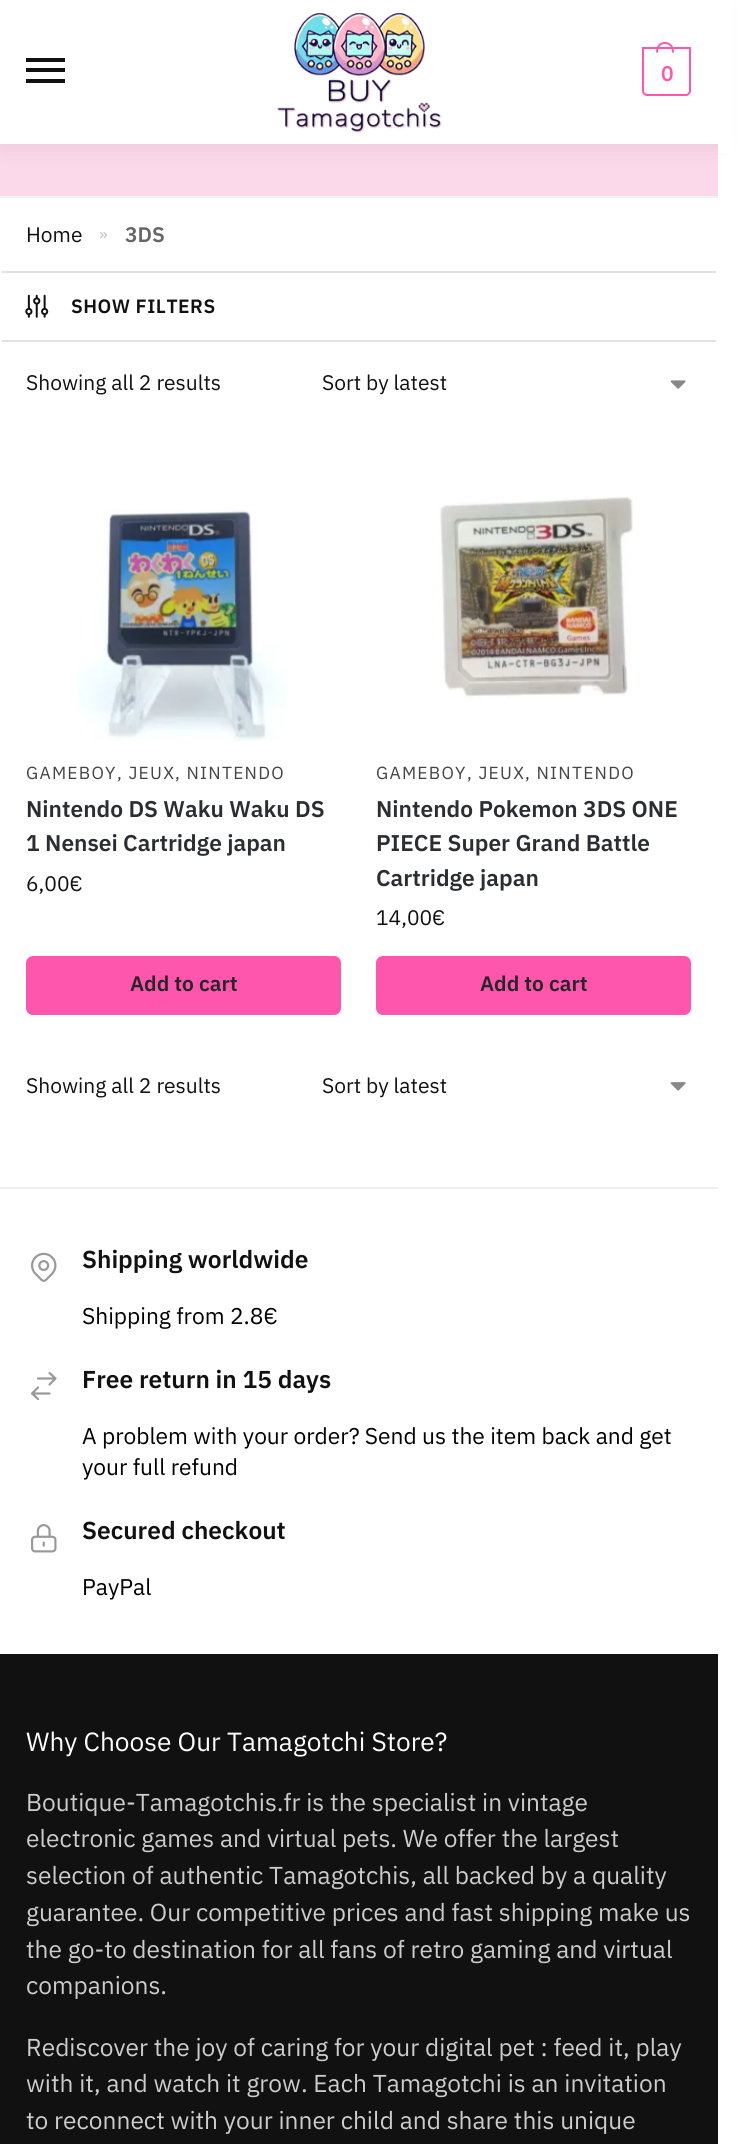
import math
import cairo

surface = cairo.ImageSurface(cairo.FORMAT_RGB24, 743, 2144)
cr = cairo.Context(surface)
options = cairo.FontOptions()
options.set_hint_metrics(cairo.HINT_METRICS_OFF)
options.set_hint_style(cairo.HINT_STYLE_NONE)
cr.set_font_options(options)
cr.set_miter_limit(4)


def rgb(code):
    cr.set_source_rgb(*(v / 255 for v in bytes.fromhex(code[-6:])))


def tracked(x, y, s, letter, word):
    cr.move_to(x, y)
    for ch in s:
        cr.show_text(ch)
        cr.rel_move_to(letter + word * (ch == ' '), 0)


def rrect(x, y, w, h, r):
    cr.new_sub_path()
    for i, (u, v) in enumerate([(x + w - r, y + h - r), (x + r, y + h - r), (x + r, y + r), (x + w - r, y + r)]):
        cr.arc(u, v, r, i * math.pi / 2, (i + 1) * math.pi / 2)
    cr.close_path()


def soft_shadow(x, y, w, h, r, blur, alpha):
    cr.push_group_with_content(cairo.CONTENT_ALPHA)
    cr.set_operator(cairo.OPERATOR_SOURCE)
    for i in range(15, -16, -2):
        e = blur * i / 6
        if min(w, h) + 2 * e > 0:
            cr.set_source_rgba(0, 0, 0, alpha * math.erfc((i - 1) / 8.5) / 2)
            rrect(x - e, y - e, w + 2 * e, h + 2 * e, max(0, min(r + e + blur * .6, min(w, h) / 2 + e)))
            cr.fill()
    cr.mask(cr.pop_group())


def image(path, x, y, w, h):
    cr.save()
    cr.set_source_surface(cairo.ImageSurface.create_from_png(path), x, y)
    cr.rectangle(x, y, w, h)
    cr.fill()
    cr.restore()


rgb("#ffffff")
cr.paint()
rgb("#fbd8ea")
cr.rectangle(0, 144, 718, 52)
cr.fill()
rgb("#000000")
soft_shadow(0, 2, 718, 143, 0, 13, 0.08)
for x, y, w, h, color in [
    (0, 0, 718, 144, "#ffffff"),
    (26, 58, 39, 4, "#111111"),
    (26, 68, 39, 4, "#111111"),
    (26, 79, 39, 4, "#111111"),
]:
    rgb(color)
    cr.rectangle(x, y, w, h)
    cr.fill()
image("img/1.png", 277, 13, 165, 120)
cr.new_path()
cr.move_to(643, 48)
cr.line_to(690, 48)
cr.line_to(690, 91)
cr.curve_to(690, 93, 688, 95, 686, 95)
cr.line_to(647, 95)
cr.curve_to(645, 95, 643, 93, 643, 91)
cr.close_path()
rgb("#ff56ad")
cr.stroke()
cr.set_fill_rule(cairo.FILL_RULE_EVEN_ODD)
cr.new_path()
cr.move_to(665, 42)
cr.curve_to(671.5, 42, 674, 47, 674, 52.5)
cr.line_to(656, 52.5)
cr.curve_to(656, 47, 658.5, 42, 665, 42)
cr.close_path()
cr.move_to(665, 44)
cr.curve_to(670.5, 44, 672, 48, 672, 52.5)
cr.line_to(658, 52.5)
cr.curve_to(658, 48, 659.5, 44, 665, 44)
cr.close_path()
cr.fill()
for x, y, w, h, color in [
    (718, 0, 15, 153, "#ffffff"),
    (0, 196, 718, 2, "#f1f1f1"),
    (2, 271, 714, 2, "#e2e2e2"),
    (2, 340, 714, 2, "#e2e2e2"),
]:
    rgb(color)
    cr.rectangle(x, y, w, h)
    cr.fill()
image("img/2.png", 25, 294, 24, 24)
image("img/3.png", 670, 380, 16, 9)
image("img/4.png", 76, 509, 212, 232)
rgb("#ff56ad")
rrect(26, 956, 315, 59, 7)
cr.fill()
image("img/5.png", 439, 496, 194, 203)
rrect(376, 956, 315, 59, 7)
cr.fill()
image("img/6.png", 670, 1082, 16, 9)
rgb("#eeeeee")
cr.rectangle(0, 1187, 718, 2)
cr.fill()
image("img/7.png", 31, 1252, 26, 30)
cr.new_path()
cr.move_to(38, 1378.5)
cr.line_to(55.5, 1378.5)
cr.move_to(55.5, 1378.5)
cr.line_to(49.5, 1373)
cr.move_to(55.5, 1378.5)
cr.line_to(49.5, 1384.5)
cr.move_to(49.5, 1393.5)
cr.line_to(32, 1393.5)
cr.move_to(32, 1393.5)
cr.line_to(38, 1399)
cr.move_to(32, 1393.5)
cr.line_to(38, 1387.5)
rgb("#999999")
cr.set_line_width(2.2)
cr.set_line_cap(cairo.LINE_CAP_ROUND)
cr.set_line_join(cairo.LINE_JOIN_ROUND)
cr.stroke()
image("img/8.png", 31, 1524, 26, 29)
rgb("#111111")
cr.rectangle(0, 1654, 718, 490)
cr.fill()
cr.select_font_face("Nunito", cairo.FONT_SLANT_NORMAL, cairo.FONT_WEIGHT_BOLD)
cr.set_font_size(21)
rgb("#ff56ad")
tracked(661, 81, "0", -1, 0)
cr.select_font_face("IBM Plex Sans")
rgb("#111111")
cr.move_to(26, 242)
cr.show_text("Home")
cr.set_font_size(17)
rgb("#c2c2c2")
cr.move_to(99, 240)
cr.show_text("»")
cr.select_font_face("IBM Plex Sans SemiBold")
cr.set_font_size(21)
rgb("#666666")
cr.move_to(125, 242)
cr.show_text("3DS")
cr.set_font_size(19.25)
rgb("#111111")
tracked(71, 313, "SHOW FILTERS", 0.5, 0)
cr.select_font_face("IBM Plex Sans")
cr.set_font_size(21)
cr.move_to(26, 390)
cr.show_text("Showing all 2 results")
cr.move_to(322, 390)
cr.show_text("Sort by latest")
cr.set_font_size(17.5)
rgb("#444444")
for x, y, s in [
    (26, 779, "GAMEBOY"),
    (117, 779, ", JEUX"),
    (175, 779, ", NINTENDO"),
]:
    tracked(x, y, s, 1.25, 0)
cr.select_font_face("IBM Plex Sans SemiBold")
cr.set_font_size(22.75)
rgb("#2c2d33")
cr.move_to(26, 817)
cr.show_text("Nintendo DS Waku Waku DS")
cr.move_to(26, 851)
cr.show_text("1 Nensei Cartridge japan")
cr.select_font_face("IBM Plex Sans")
cr.set_font_size(21)
rgb("#111111")
cr.move_to(26, 891)
cr.show_text("6,00€")
cr.select_font_face("IBM Plex Sans SemiBold")
rgb("#272727")
cr.move_to(130, 991)
cr.show_text("Add to cart")
cr.new_path()
cr.move_to(173, 974.5)
cr.curve_to(176, 972, 180, 970.5, 184, 970.5)
cr.curve_to(201.5, 970.5, 204, 996.5, 186.5, 1000)
cr.curve_to(182, 1001, 176.5, 999.5, 173, 996)
rgb("#ff56ad")
cr.set_line_width(1.8)
cr.set_line_cap(cairo.LINE_CAP_BUTT)
cr.set_line_join(cairo.LINE_JOIN_MITER)
cr.stroke()
cr.select_font_face("IBM Plex Sans")
cr.set_font_size(17.5)
rgb("#444444")
for x, y, s in [
    (376, 779, "GAMEBOY"),
    (467, 779, ", JEUX"),
    (525, 779, ", NINTENDO"),
]:
    tracked(x, y, s, 1.25, 0)
cr.select_font_face("IBM Plex Sans SemiBold")
cr.set_font_size(22.75)
rgb("#2c2d33")
for x, y, s in [
    (376, 817, "Nintendo Pokemon 3DS ONE"),
    (376, 851, "PIECE Super Grand Battle"),
    (376, 886, "Cartridge japan"),
]:
    cr.move_to(x, y)
    cr.show_text(s)
cr.select_font_face("IBM Plex Sans")
cr.set_font_size(21)
rgb("#111111")
cr.move_to(376, 925)
cr.show_text("14,00€")
cr.select_font_face("IBM Plex Sans SemiBold")
rgb("#272727")
cr.move_to(480, 991)
cr.show_text("Add to cart")
cr.new_path()
cr.move_to(523, 974.5)
cr.curve_to(526.5, 971, 532, 969.5, 536.5, 970.5)
cr.curve_to(554, 974, 551.5, 1000, 534, 1000)
cr.curve_to(530, 1000, 526, 998.5, 523, 996)
rgb("#ff56ad")
cr.stroke()
cr.select_font_face("IBM Plex Sans")
rgb("#111111")
cr.move_to(26, 1093)
cr.show_text("Showing all 2 results")
cr.move_to(322, 1093)
cr.show_text("Sort by latest")
cr.select_font_face("IBM Plex Sans SemiBold")
cr.set_font_size(24.5)
cr.move_to(82, 1268)
cr.show_text("Shipping worldwide")
cr.select_font_face("IBM Plex Sans")
cr.set_font_size(22.75)
rgb("#000000")
cr.move_to(82, 1324)
cr.show_text("Shipping from 2.8€")
cr.select_font_face("IBM Plex Sans SemiBold")
cr.set_font_size(24.5)
rgb("#111111")
cr.move_to(82, 1388)
cr.show_text("Free return in 15 days")
cr.select_font_face("IBM Plex Sans")
cr.set_font_size(22.75)
rgb("#000000")
cr.move_to(82, 1444)
cr.show_text("A problem with your order? Send us the item back and get")
cr.move_to(82, 1475)
cr.show_text("your full refund")
cr.select_font_face("IBM Plex Sans SemiBold")
cr.set_font_size(24.5)
rgb("#111111")
cr.move_to(82, 1539)
cr.show_text("Secured checkout")
cr.select_font_face("IBM Plex Sans")
cr.set_font_size(22.75)
rgb("#000000")
cr.move_to(82, 1595)
cr.show_text("PayPal")
cr.set_font_size(26.25)
rgb("#ffffff")
cr.move_to(26, 1751)
cr.show_text("Why Choose Our Tamagotchi Store?")
cr.set_font_size(24.5)
rgb("#cccccc")
for x, y, s in [
    (26, 1811, "Boutique-Tamagotchis.fr is the specialist in vintage"),
    (26, 1847, "electronic games and virtual pets. We offer the largest"),
    (26, 1884, "selection of authentic Tamagotchis, all backed by a quality"),
    (26, 1921, "guarantee. Our competitive prices and fast shipping make us"),
    (26, 1958, "the go-to destination for all fans of retro gaming and virtual"),
    (26, 1994, "companions."),
    (26, 2056, "Rediscover the joy of caring for your digital pet : feed it, play"),
    (26, 2092, "with it, and watch it grow. Each Tamagotchi is an invitation"),
    (26, 2129, "to reconnect with your inner child and share this unique"),
]:
    cr.move_to(x, y)
    cr.show_text(s)
surface.write_to_png("page.png")
